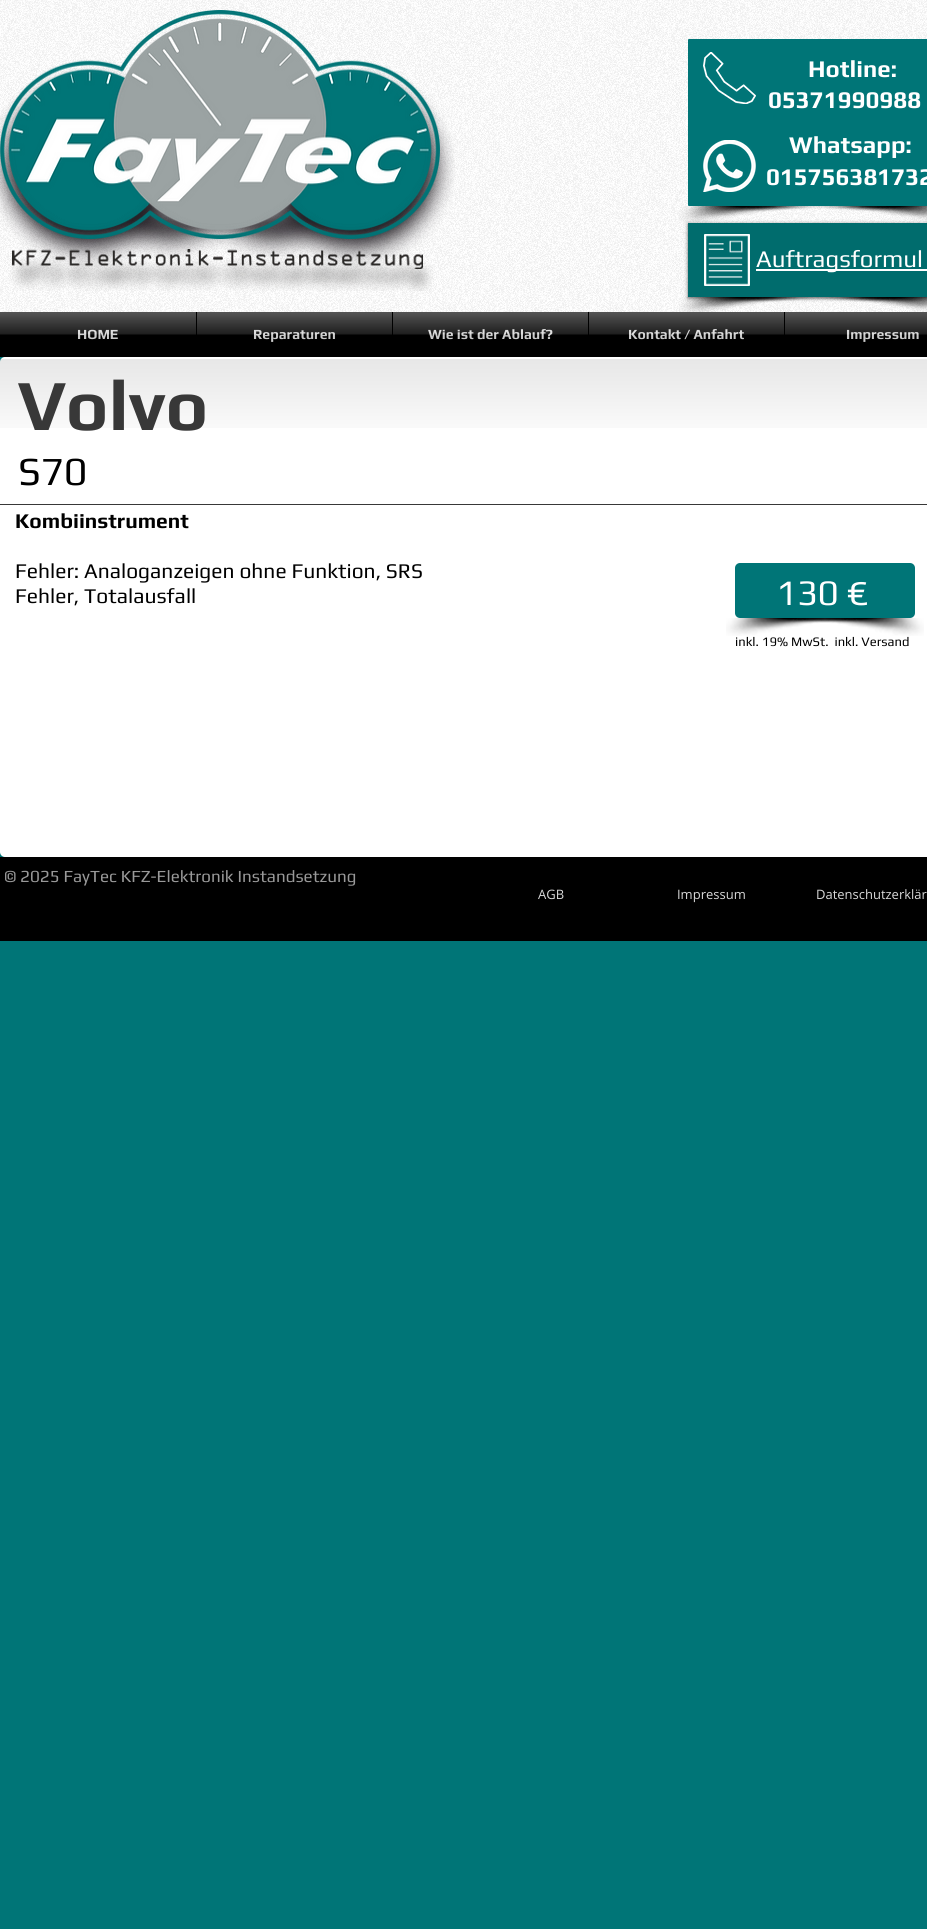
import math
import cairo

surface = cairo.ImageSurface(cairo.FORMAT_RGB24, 927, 1929)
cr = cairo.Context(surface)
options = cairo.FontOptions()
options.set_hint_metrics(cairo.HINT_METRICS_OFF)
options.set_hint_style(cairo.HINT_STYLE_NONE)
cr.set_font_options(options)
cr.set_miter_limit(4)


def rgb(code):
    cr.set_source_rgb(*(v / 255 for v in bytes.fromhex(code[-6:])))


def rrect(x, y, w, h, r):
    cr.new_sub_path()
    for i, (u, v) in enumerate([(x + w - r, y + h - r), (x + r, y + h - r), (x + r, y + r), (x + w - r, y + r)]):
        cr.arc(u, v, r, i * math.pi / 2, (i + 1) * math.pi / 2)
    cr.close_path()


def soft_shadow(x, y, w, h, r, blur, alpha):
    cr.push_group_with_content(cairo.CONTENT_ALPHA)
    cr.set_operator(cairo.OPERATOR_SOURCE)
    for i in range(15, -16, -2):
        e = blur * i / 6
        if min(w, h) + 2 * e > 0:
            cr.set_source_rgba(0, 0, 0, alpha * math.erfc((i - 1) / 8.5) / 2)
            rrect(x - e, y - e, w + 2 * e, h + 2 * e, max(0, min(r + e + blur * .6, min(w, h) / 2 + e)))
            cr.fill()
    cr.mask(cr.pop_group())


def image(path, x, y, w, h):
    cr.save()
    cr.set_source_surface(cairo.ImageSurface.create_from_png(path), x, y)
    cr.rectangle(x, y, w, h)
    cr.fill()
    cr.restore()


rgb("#007577")
cr.paint()
rgb("#ffffff")
cr.rectangle(0, 0, 927, 312)
cr.fill()
image("img/1.png", 0, 0, 927, 312)
image("img/7.png", 0, 68, 455, 223)
image("img/2.png", 0, 10, 440, 229)
rgb("#007577")
rrect(688, 39, 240, 167, 1)
cr.fill()
image("img/3.png", 703, 52, 53, 52)
image("img/4.png", 703, 140, 53, 52)
image("img/5.png", 679, 206, 154, 17)
image("img/6.png", 803, 206, 124, 16)
image("img/8.png", 679, 297, 154, 15)
image("img/9.png", 803, 297, 124, 15)
rgb("#000000")
soft_shadow(688, 224, 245, 74, 0, 2, 0.6)
rgb("#006c6d")
cr.rectangle(688, 223, 239, 74)
cr.fill()
image("img/10.png", 12, 249, 411, 20)
image("img/11.png", 704, 234, 46, 52)
rgb("#ffffff")
cr.rectangle(756, 269, 171, 2)
cr.fill()
rgb("#000000")
cr.rectangle(0, 312, 927, 45)
cr.fill()
rgb("#ffffff")
rrect(0, 357, 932, 500, 5)
cr.fill()
image("img/17.png", 0, 359, 927, 69)
rgb("#383838")
cr.rectangle(0, 504, 927, 1)
cr.fill()
rgb("#007577")
rrect(735, 563, 180, 55, 5)
cr.fill()
image("img/18.png", 726, 618, 154, 18)
image("img/19.png", 798, 618, 126, 18)
rgb("#000000")
cr.rectangle(0, 857, 927, 84)
cr.fill()
cr.select_font_face("Play", cairo.FONT_SLANT_NORMAL, cairo.FONT_WEIGHT_BOLD)
cr.set_font_size(24)
rgb("#ffffff")
for x, y, s in [
    (808, 77, "Hotline:"),
    (768, 108, "05371990988"),
    (789, 153, "Whatsapp:"),
    (766, 185, "015756381732"),
]:
    cr.move_to(x, y)
    cr.show_text(s)
cr.select_font_face("Play")
cr.move_to(756, 267)
cr.show_text("Auftragsformul")
cr.select_font_face("Play", cairo.FONT_SLANT_NORMAL, cairo.FONT_WEIGHT_BOLD)
cr.set_font_size(14)
rgb("#d9d9d9")
cr.move_to(77, 339)
cr.show_text("HOME")
image("img/12.png", 0, 312, 196, 27)
cr.move_to(253, 339)
cr.show_text("Reparaturen")
image("img/13.png", 197, 312, 195, 30)
cr.move_to(428, 339)
cr.show_text("Wie ist der Ablauf?")
image("img/14.png", 393, 312, 195, 27)
cr.move_to(628, 339)
cr.show_text("Kontakt / Anfahrt")
image("img/15.png", 589, 312, 195, 27)
cr.move_to(846, 339)
cr.show_text("Impressum")
image("img/16.png", 785, 312, 142, 30)
cr.set_font_size(72)
rgb("#383838")
cr.move_to(18, 430)
cr.show_text("Volvo")
cr.select_font_face("Play")
cr.set_font_size(40)
rgb("#000000")
cr.move_to(18, 485)
cr.show_text("S70")
cr.select_font_face("Play", cairo.FONT_SLANT_NORMAL, cairo.FONT_WEIGHT_BOLD)
cr.set_font_size(21)
cr.move_to(15, 528)
cr.show_text("Kombiinstrument")
cr.select_font_face("Play")
cr.move_to(15, 578)
cr.show_text("Fehler: Analoganzeigen ohne Funktion, SRS")
cr.move_to(15, 603)
cr.show_text("Fehler, Totalausfall")
cr.set_font_size(36)
rgb("#ffffff")
cr.move_to(776, 605)
cr.show_text("130 €")
cr.set_font_size(13)
rgb("#000000")
cr.move_to(735, 646)
cr.show_text("inkl. 19% MwSt.  inkl. Versand")
cr.set_font_size(17)
rgb("#999999")
cr.move_to(4, 882)
cr.show_text("© 2025 FayTec KFZ-Elektronik Instandsetzung")
cr.select_font_face("Open Sans")
cr.set_font_size(13)
rgb("#d9d9d9")
for x, y, s in [
    (538, 899, "AGB"),
    (677, 899, "Impressum"),
    (816, 899, "Datenschutzerklär"),
]:
    cr.move_to(x, y)
    cr.show_text(s)
surface.write_to_png("page.png")
